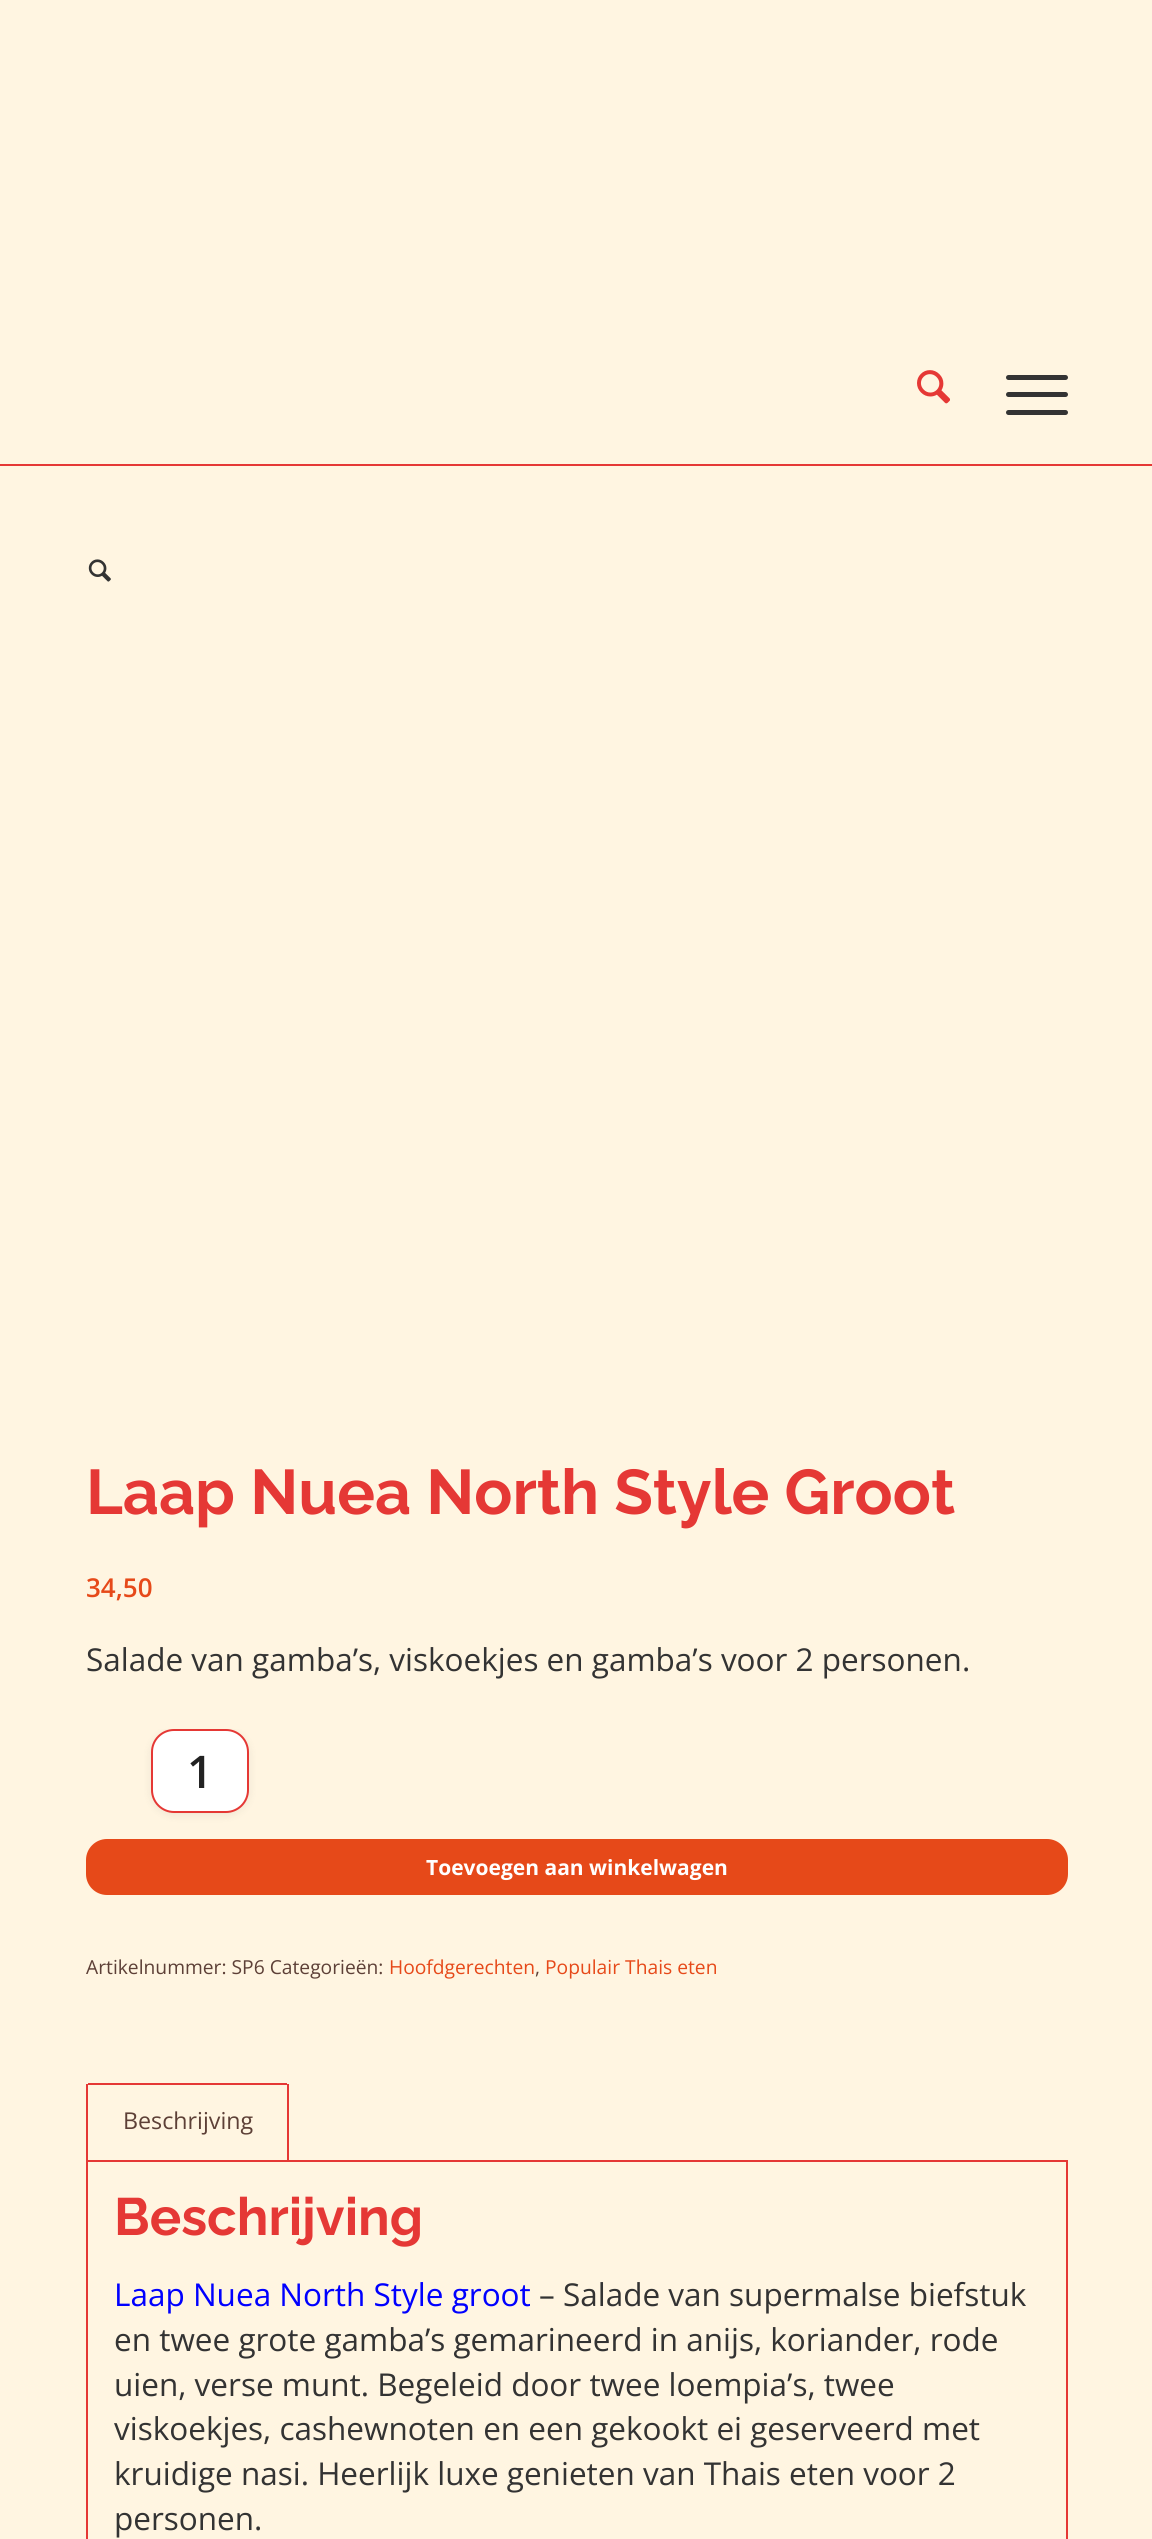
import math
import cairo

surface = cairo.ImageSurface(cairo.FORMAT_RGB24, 1152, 2539)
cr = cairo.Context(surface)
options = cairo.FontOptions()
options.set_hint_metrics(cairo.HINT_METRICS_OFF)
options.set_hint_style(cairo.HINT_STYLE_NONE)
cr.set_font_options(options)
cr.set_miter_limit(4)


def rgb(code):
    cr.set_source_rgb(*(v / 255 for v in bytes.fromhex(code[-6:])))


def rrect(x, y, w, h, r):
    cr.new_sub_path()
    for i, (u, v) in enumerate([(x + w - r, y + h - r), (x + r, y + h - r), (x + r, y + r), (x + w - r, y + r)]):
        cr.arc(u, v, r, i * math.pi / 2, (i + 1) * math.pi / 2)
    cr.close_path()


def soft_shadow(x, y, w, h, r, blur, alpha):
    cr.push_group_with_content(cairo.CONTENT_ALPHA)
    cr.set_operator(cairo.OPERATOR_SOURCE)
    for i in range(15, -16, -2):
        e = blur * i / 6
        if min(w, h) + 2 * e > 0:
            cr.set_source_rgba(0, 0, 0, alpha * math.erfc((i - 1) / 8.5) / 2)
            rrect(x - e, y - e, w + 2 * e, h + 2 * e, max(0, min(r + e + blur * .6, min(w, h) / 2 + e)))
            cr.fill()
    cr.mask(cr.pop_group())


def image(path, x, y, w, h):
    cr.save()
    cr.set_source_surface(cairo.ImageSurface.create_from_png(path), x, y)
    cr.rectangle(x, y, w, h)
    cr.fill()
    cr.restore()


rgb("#fff5e1")
cr.paint()
image("img/1.png", 917, 370, 33, 34)
rgb("#333333")
rrect(1006, 392, 62, 5, 2.5)
cr.fill()
rrect(1006, 375, 62, 5, 2.5)
cr.fill()
rrect(1006, 410, 62, 5, 2.5)
cr.fill()
rgb("#e53835")
cr.rectangle(0, 464, 1152, 2)
cr.fill()
image("img/2.png", 88, 559, 23, 23)
cr.save()
cr.rectangle(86, 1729, 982, 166)
cr.clip()
rgb("#000000")
soft_shadow(151, 1731, 98, 84, 23, 5, 0.07)
cr.restore()
rgb("#ffffff")
rrect(152, 1730, 96, 82, 22)
cr.fill_preserve()
rgb("#e53835")
cr.stroke()
rgb("#e64919")
rrect(86, 1839, 982, 56, 21)
cr.fill()
rgb("#e53835")
cr.rectangle(88, 2083, 199, 2)
cr.fill()
cr.rectangle(87, 2161, 980, 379)
cr.stroke()
cr.rectangle(287, 2084, 2, 77)
cr.fill()
cr.rectangle(86, 2084, 2, 77)
cr.fill()
cr.select_font_face("Raleway", cairo.FONT_SLANT_NORMAL, cairo.FONT_WEIGHT_BOLD)
cr.set_font_size(63)
cr.move_to(86, 1514)
cr.show_text("Laap Nuea North Style Groot")
cr.select_font_face("Open Sans SemiBold")
cr.set_font_size(26)
rgb("#e64919")
cr.move_to(86, 1597)
cr.show_text("34,50")
cr.select_font_face("Open Sans")
cr.set_font_size(31.5)
rgb("#333333")
cr.move_to(86, 1671)
cr.show_text("Salade van gamba’s, viskoekjes en gamba’s voor 2 personen.")
cr.select_font_face("Open Sans SemiBold")
cr.set_font_size(45)
rgb("#222222")
cr.move_to(187, 1788)
cr.show_text("1")
cr.select_font_face("Open Sans", cairo.FONT_SLANT_NORMAL, cairo.FONT_WEIGHT_BOLD)
cr.set_font_size(21)
rgb("#ffffff")
cr.move_to(426, 1875)
cr.show_text("Toevoegen aan winkelwagen")
cr.select_font_face("Open Sans")
cr.set_font_size(19.25)
rgb("#5d4037")
cr.move_to(86, 1974)
cr.show_text("Artikelnummer: SP6 Categorieën:")
rgb("#e64919")
cr.move_to(389, 1974)
cr.show_text("Hoofdgerechten")
rgb("#5d4037")
cr.move_to(535, 1974)
cr.show_text(",")
rgb("#e64919")
cr.move_to(545, 1974)
cr.show_text("Populair Thais eten")
cr.set_font_size(23.25)
rgb("#5d4037")
cr.move_to(123, 2129)
cr.show_text("Beschrijving")
cr.select_font_face("Raleway", cairo.FONT_SLANT_NORMAL, cairo.FONT_WEIGHT_BOLD)
cr.set_font_size(52.5)
rgb("#e53835")
cr.move_to(114, 2235)
cr.show_text("Beschrijving")
cr.select_font_face("Open Sans")
cr.set_font_size(31.5)
rgb("#0000ff")
cr.move_to(114, 2306)
cr.show_text("Laap Nuea North Style groot")
rgb("#333333")
for x, y, s in [
    (539, 2306, "– Salade van supermalse biefstuk"),
    (114, 2351, "en twee grote gamba’s gemarineerd in anijs, koriander, rode"),
    (114, 2396, "uien, verse munt. Begeleid door twee loempia’s, twee"),
    (114, 2440, "viskoekjes, cashewnoten en een gekookt ei geserveerd met"),
    (114, 2485, "kruidige nasi. Heerlijk luxe genieten van Thais eten voor 2"),
    (114, 2530, "personen."),
]:
    cr.move_to(x, y)
    cr.show_text(s)
surface.write_to_png("page.png")
